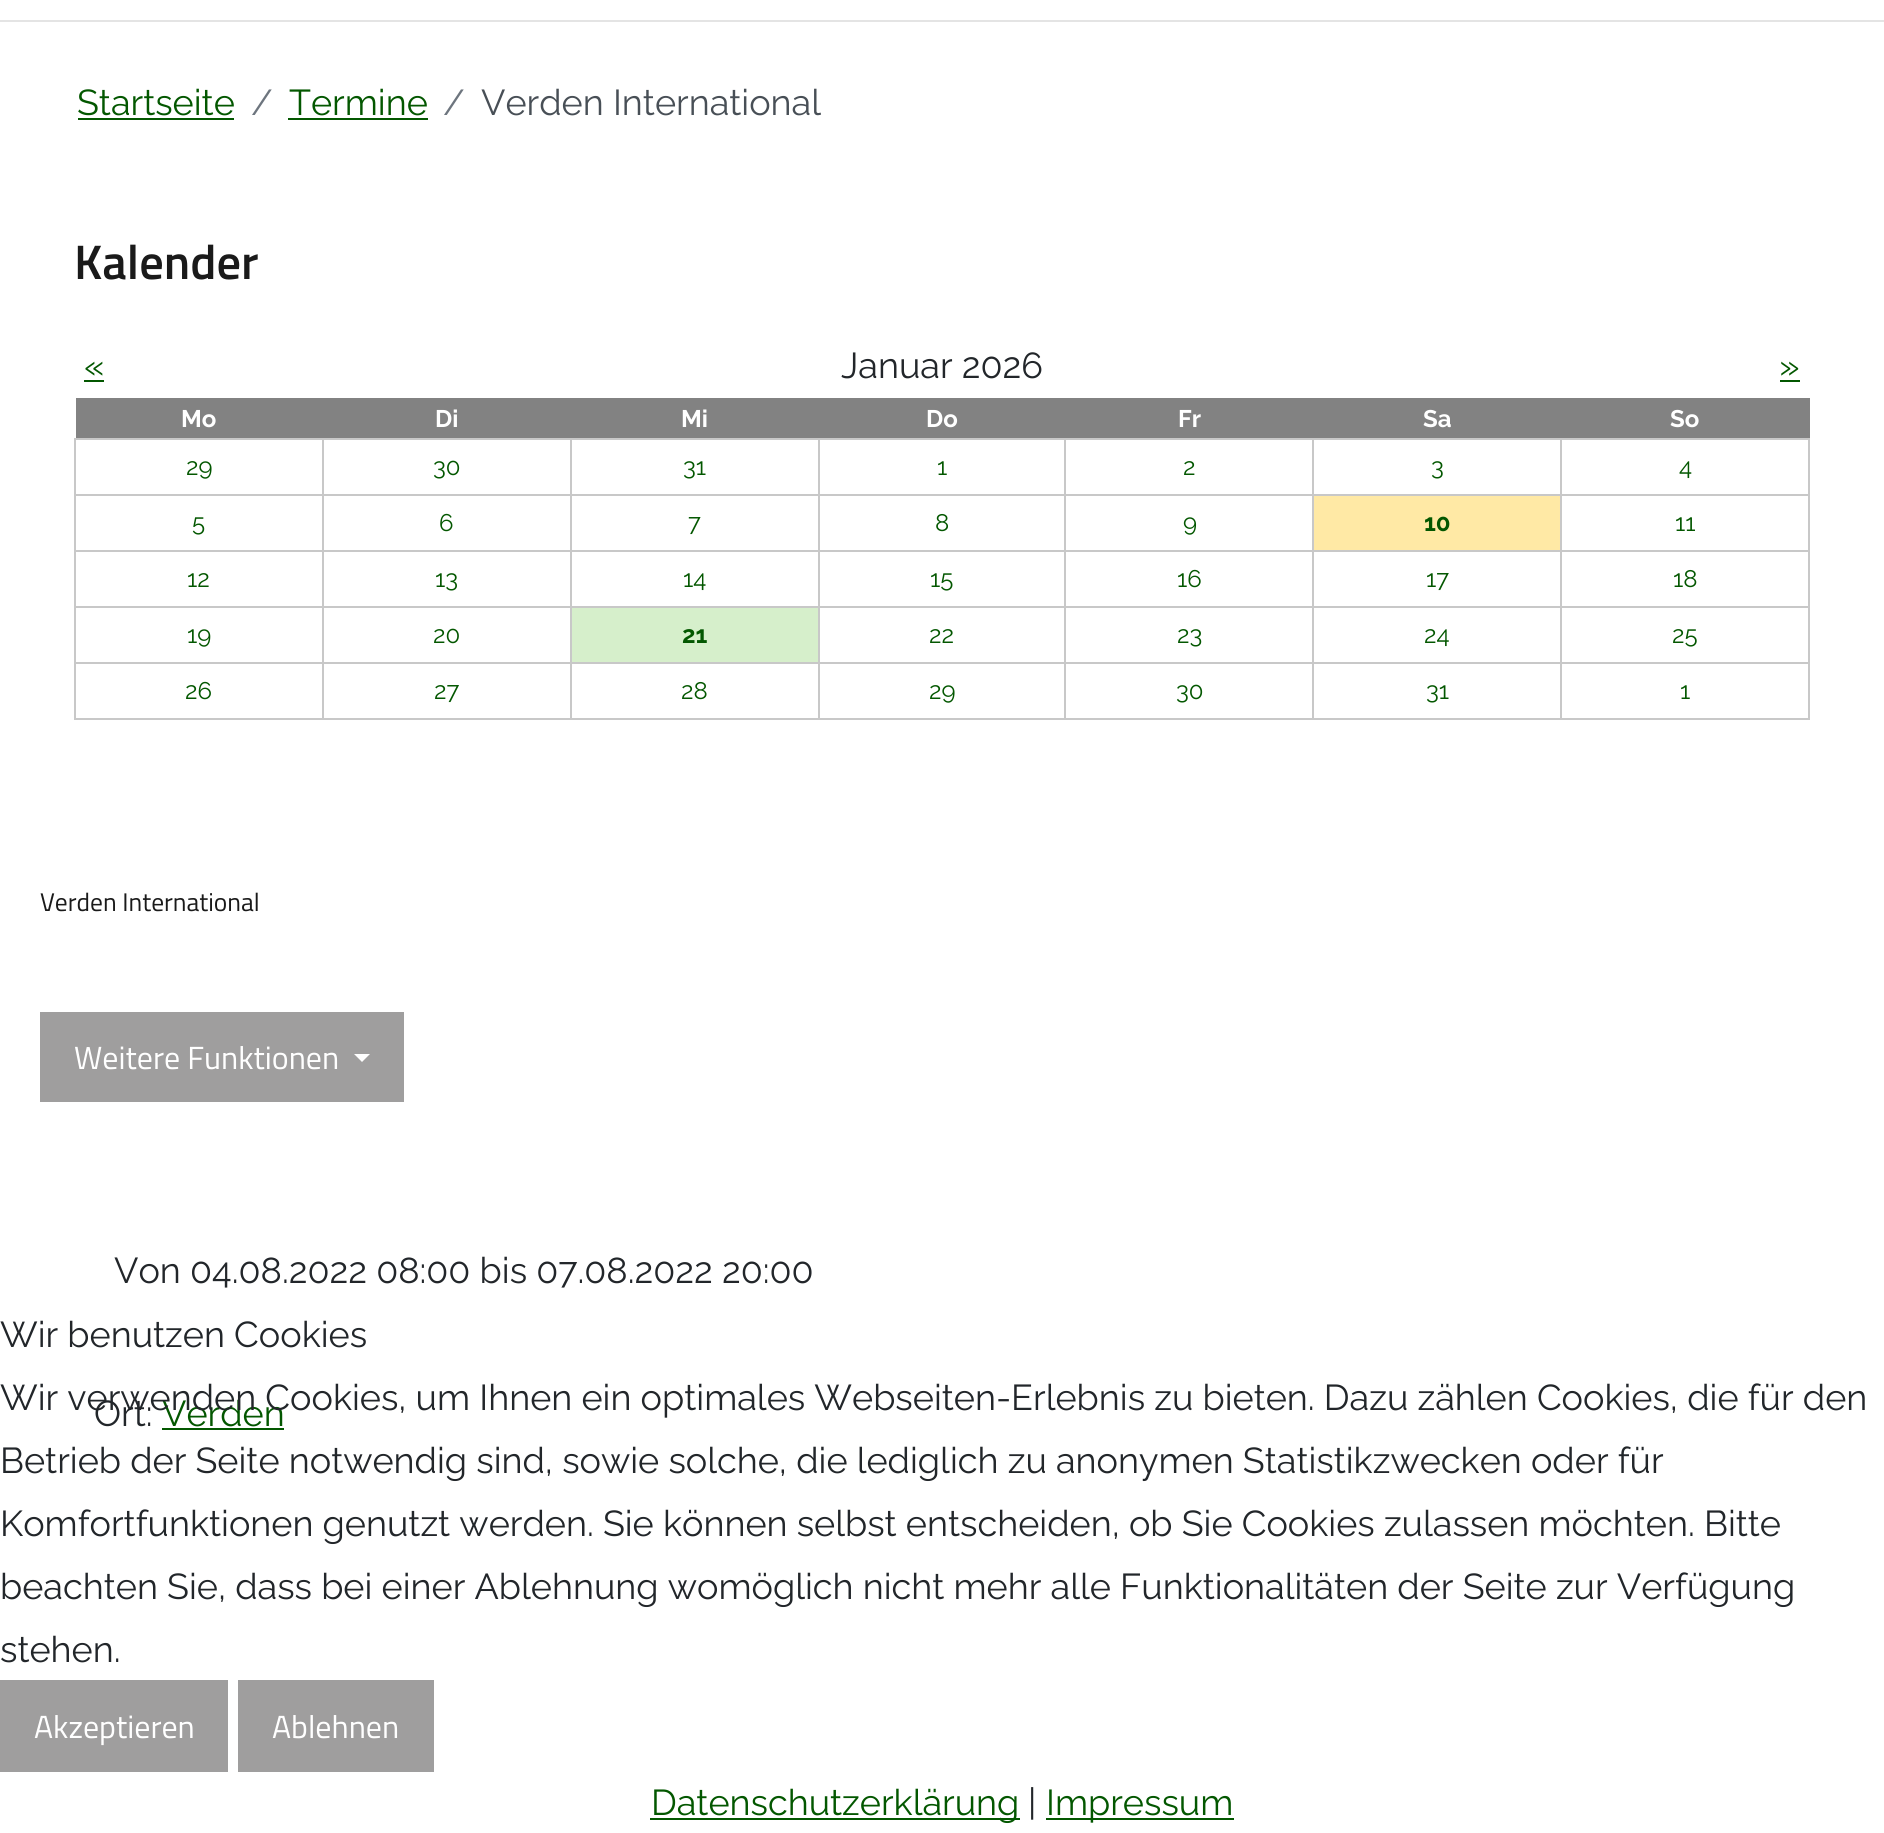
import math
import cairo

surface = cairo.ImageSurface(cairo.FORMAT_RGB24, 1884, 1833)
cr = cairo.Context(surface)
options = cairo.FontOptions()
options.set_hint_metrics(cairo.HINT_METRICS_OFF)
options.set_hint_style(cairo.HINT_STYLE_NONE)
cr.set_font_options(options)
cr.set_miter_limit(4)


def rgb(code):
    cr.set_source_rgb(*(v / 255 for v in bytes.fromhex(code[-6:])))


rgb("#ffffff")
cr.paint()
for x, y, w, h, color in [
    (0, 20, 1884, 2, "#e4e4e4"),
    (78, 118, 156, 2, "#035700"),
    (288, 118, 140, 2, "#035700"),
    (84, 380, 20, 2, "#035700"),
    (1780, 380, 20, 2, "#035700"),
    (76, 398, 1734, 40, "#828282"),
    (1560, 438, 250, 2, "#c8c8c8"),
    (1560, 494, 250, 2, "#c8c8c8"),
    (1560, 550, 250, 2, "#c8c8c8"),
    (1560, 606, 250, 2, "#c8c8c8"),
    (1560, 662, 250, 2, "#c8c8c8"),
    (1808, 662, 2, 58, "#c8c8c8"),
    (1560, 718, 250, 2, "#c8c8c8"),
    (1560, 662, 2, 58, "#c8c8c8"),
    (1312, 662, 250, 2, "#c8c8c8"),
    (1560, 606, 2, 58, "#c8c8c8"),
    (1312, 606, 250, 2, "#c8c8c8"),
    (1560, 550, 2, 58, "#c8c8c8"),
    (1312, 550, 250, 2, "#c8c8c8"),
    (1560, 494, 2, 58, "#c8c8c8"),
    (1312, 494, 250, 2, "#c8c8c8"),
    (1560, 438, 2, 58, "#c8c8c8"),
    (1312, 438, 250, 2, "#c8c8c8"),
    (1312, 718, 250, 2, "#c8c8c8"),
    (1312, 662, 2, 58, "#c8c8c8"),
    (1064, 662, 250, 2, "#c8c8c8"),
    (1312, 606, 2, 58, "#c8c8c8"),
    (1064, 606, 250, 2, "#c8c8c8"),
    (1312, 550, 2, 58, "#c8c8c8"),
    (1064, 550, 250, 2, "#c8c8c8"),
    (1312, 494, 2, 58, "#c8c8c8"),
    (1064, 494, 250, 2, "#c8c8c8"),
    (1312, 438, 2, 58, "#c8c8c8"),
    (1064, 438, 250, 2, "#c8c8c8"),
    (1064, 718, 250, 2, "#c8c8c8"),
    (1064, 662, 2, 58, "#c8c8c8"),
    (818, 662, 248, 2, "#c8c8c8"),
    (1064, 606, 2, 58, "#c8c8c8"),
    (818, 606, 248, 2, "#c8c8c8"),
    (1064, 550, 2, 58, "#c8c8c8"),
    (818, 550, 248, 2, "#c8c8c8"),
    (1064, 494, 2, 58, "#c8c8c8"),
    (818, 494, 248, 2, "#c8c8c8"),
    (1064, 438, 2, 58, "#c8c8c8"),
    (818, 438, 248, 2, "#c8c8c8"),
    (818, 718, 248, 2, "#c8c8c8"),
    (818, 662, 2, 58, "#c8c8c8"),
    (570, 662, 250, 2, "#c8c8c8"),
    (818, 606, 2, 58, "#c8c8c8"),
    (570, 606, 250, 2, "#c8c8c8"),
    (818, 550, 2, 58, "#c8c8c8"),
    (570, 550, 250, 2, "#c8c8c8"),
    (818, 494, 2, 58, "#c8c8c8"),
    (570, 494, 250, 2, "#c8c8c8"),
    (818, 438, 2, 58, "#c8c8c8"),
    (570, 438, 250, 2, "#c8c8c8"),
    (570, 718, 250, 2, "#c8c8c8"),
    (570, 662, 2, 58, "#c8c8c8"),
    (322, 662, 250, 2, "#c8c8c8"),
    (570, 606, 2, 58, "#c8c8c8"),
    (322, 606, 250, 2, "#c8c8c8"),
    (570, 550, 2, 58, "#c8c8c8"),
    (322, 550, 250, 2, "#c8c8c8"),
    (570, 494, 2, 58, "#c8c8c8"),
    (322, 494, 250, 2, "#c8c8c8"),
    (570, 438, 2, 58, "#c8c8c8"),
    (322, 438, 250, 2, "#c8c8c8"),
    (322, 718, 250, 2, "#c8c8c8"),
    (322, 662, 2, 58, "#c8c8c8"),
    (74, 662, 250, 2, "#c8c8c8"),
    (322, 606, 2, 58, "#c8c8c8"),
    (74, 606, 250, 2, "#c8c8c8"),
    (322, 550, 2, 58, "#c8c8c8"),
    (74, 550, 250, 2, "#c8c8c8"),
    (322, 494, 2, 58, "#c8c8c8"),
    (74, 494, 250, 2, "#c8c8c8"),
    (322, 438, 2, 58, "#c8c8c8"),
    (74, 438, 250, 2, "#c8c8c8"),
    (74, 718, 250, 2, "#c8c8c8"),
    (74, 662, 2, 58, "#c8c8c8"),
    (74, 606, 2, 58, "#c8c8c8"),
    (74, 550, 2, 58, "#c8c8c8"),
    (74, 494, 2, 58, "#c8c8c8"),
    (74, 438, 2, 58, "#c8c8c8"),
    (1808, 606, 2, 58, "#c8c8c8"),
    (1808, 550, 2, 58, "#c8c8c8"),
    (1808, 494, 2, 58, "#c8c8c8"),
    (1808, 438, 2, 58, "#c8c8c8"),
    (1314, 496, 246, 54, "#ffe9a5"),
    (572, 608, 246, 54, "#d6efcb"),
    (40, 1012, 364, 90, "#9f9e9e"),
]:
    rgb(color)
    cr.rectangle(x, y, w, h)
    cr.fill()
rgb("#ffffff")
cr.new_path()
cr.move_to(354, 1054)
cr.line_to(370, 1054)
cr.line_to(362, 1062)
cr.close_path()
cr.fill()
for x, y, w, h, color in [
    (162, 1428, 122, 2, "#035700"),
    (0, 1680, 228, 92, "#9f9e9e"),
    (238, 1680, 196, 92, "#9f9e9e"),
    (650, 1818, 370, 2, "#035700"),
    (1046, 1818, 188, 2, "#035700"),
]:
    rgb(color)
    cr.rectangle(x, y, w, h)
    cr.fill()
cr.select_font_face("Raleway")
cr.set_font_size(36)
cr.move_to(77, 115)
cr.show_text("Startseite")
rgb("#6d757e")
cr.move_to(251, 115)
cr.show_text("/")
rgb("#035700")
cr.move_to(289, 115)
cr.show_text("Termine")
rgb("#6d757e")
cr.move_to(443, 115)
cr.show_text("/")
rgb("#484f56")
cr.move_to(481, 115)
cr.show_text("Verden International")
cr.select_font_face("Titillium Web SemiBold")
cr.set_font_size(48.5)
rgb("#1a1a1a")
cr.move_to(74, 279)
cr.show_text("Kalender")
cr.select_font_face("Raleway")
cr.set_font_size(36)
rgb("#035700")
cr.move_to(84, 378)
cr.show_text("«")
rgb("#22262a")
cr.move_to(841, 378)
cr.show_text("Januar 2026")
rgb("#035700")
cr.move_to(1779, 378)
cr.show_text("»")
cr.select_font_face("Raleway", cairo.FONT_SLANT_NORMAL, cairo.FONT_WEIGHT_BOLD)
cr.set_font_size(24)
rgb("#ffffff")
for x, y, s in [
    (181, 427, "Mo"),
    (435, 427, "Di"),
    (681, 427, "Mi"),
    (926, 427, "Do"),
    (1178, 427, "Fr"),
    (1423, 427, "Sa"),
    (1670, 427, "So"),
]:
    cr.move_to(x, y)
    cr.show_text(s)
cr.select_font_face("Raleway")
rgb("#035700")
for x, y, s in [
    (186, 475, "29"),
    (433, 475, "30"),
    (683, 475, "31"),
    (937, 475, "1"),
    (1183, 475, "2"),
    (1431, 475, "3"),
    (1679, 475, "4"),
    (192, 531, "5"),
    (439, 531, "6"),
    (688, 531, "7"),
    (935, 531, "8"),
    (1183, 531, "9"),
]:
    cr.move_to(x, y)
    cr.show_text(s)
cr.select_font_face("Raleway", cairo.FONT_SLANT_NORMAL, cairo.FONT_WEIGHT_BOLD)
cr.move_to(1424, 531)
cr.show_text("10")
cr.select_font_face("Raleway")
for x, y, s in [
    (1675, 531, "11"),
    (187, 587, "12"),
    (435, 587, "13"),
    (683, 587, "14"),
    (930, 587, "15"),
    (1177, 587, "16"),
    (1426, 587, "17"),
    (1673, 587, "18"),
    (187, 643, "19"),
    (433, 643, "20"),
]:
    cr.move_to(x, y)
    cr.show_text(s)
cr.select_font_face("Raleway", cairo.FONT_SLANT_NORMAL, cairo.FONT_WEIGHT_BOLD)
cr.move_to(682, 643)
cr.show_text("21")
cr.select_font_face("Raleway")
for x, y, s in [
    (929, 643, "22"),
    (1177, 643, "23"),
    (1424, 643, "24"),
    (1672, 643, "25"),
    (185, 699, "26"),
    (434, 699, "27"),
    (681, 699, "28"),
    (929, 699, "29"),
    (1176, 699, "30"),
    (1426, 699, "31"),
    (1680, 699, "1"),
]:
    cr.move_to(x, y)
    cr.show_text(s)
cr.select_font_face("Titillium Web")
cr.set_font_size(25.5)
rgb("#1a1a1a")
cr.move_to(40, 911)
cr.show_text("Verden International")
cr.set_font_size(32)
rgb("#ffffff")
cr.move_to(74, 1069)
cr.show_text("Weitere Funktionen")
cr.select_font_face("Raleway")
cr.set_font_size(36)
rgb("#22262a")
cr.move_to(114, 1283)
cr.show_text("Von 04.08.2022 08:00 bis 07.08.2022 20:00")
cr.move_to(94, 1426)
cr.show_text("Ort:")
rgb("#035700")
cr.move_to(162, 1426)
cr.show_text("Verden")
rgb("#22262a")
for x, y, s in [
    (0, 1347, "Wir benutzen Cookies"),
    (0, 1410, "Wir verwenden Cookies, um Ihnen ein optimales Webseiten-Erlebnis zu bieten. Dazu zählen Cookies, die für den"),
    (0, 1473, "Betrieb der Seite notwendig sind, sowie solche, die lediglich zu anonymen Statistikzwecken oder für"),
    (0, 1536, "Komfortfunktionen genutzt werden. Sie können selbst entscheiden, ob Sie Cookies zulassen möchten. Bitte"),
    (0, 1599, "beachten Sie, dass bei einer Ablehnung womöglich nicht mehr alle Funktionalitäten der Seite zur Verfügung"),
    (0, 1662, "stehen."),
]:
    cr.move_to(x, y)
    cr.show_text(s)
cr.select_font_face("Titillium Web")
cr.set_font_size(32)
rgb("#ffffff")
cr.move_to(34, 1738)
cr.show_text("Akzeptieren")
cr.move_to(272, 1738)
cr.show_text("Ablehnen")
cr.select_font_face("Raleway")
cr.set_font_size(36)
rgb("#035700")
cr.move_to(651, 1815)
cr.show_text("Datenschutzerklärung")
rgb("#22262a")
cr.move_to(1028, 1815)
cr.show_text("|")
rgb("#035700")
cr.move_to(1046, 1815)
cr.show_text("Impressum")
surface.write_to_png("page.png")
